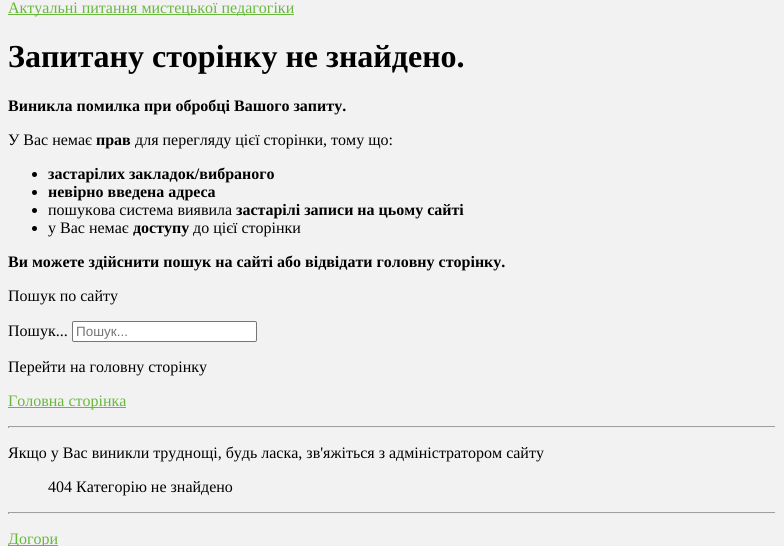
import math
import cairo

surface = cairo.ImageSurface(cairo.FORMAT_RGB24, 784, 546)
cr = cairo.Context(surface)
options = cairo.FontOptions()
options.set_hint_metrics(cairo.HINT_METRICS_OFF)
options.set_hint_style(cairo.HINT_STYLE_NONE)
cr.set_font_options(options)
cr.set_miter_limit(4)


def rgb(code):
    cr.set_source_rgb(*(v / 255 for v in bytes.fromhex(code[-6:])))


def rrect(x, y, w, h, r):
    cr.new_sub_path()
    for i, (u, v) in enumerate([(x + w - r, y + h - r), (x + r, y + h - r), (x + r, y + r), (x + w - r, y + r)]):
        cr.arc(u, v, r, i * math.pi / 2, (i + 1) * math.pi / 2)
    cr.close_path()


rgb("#f2f2f2")
cr.paint()
rgb("#67b83b")
cr.rectangle(8, 14, 286, 1)
cr.fill()
rgb("#000000")
cr.arc(34.5, 174.5, 2.5, 0, 2 * math.pi)
cr.fill()
cr.arc(34.5, 192.5, 2.5, 0, 2 * math.pi)
cr.fill()
cr.arc(34.5, 210.5, 2.5, 0, 2 * math.pi)
cr.fill()
cr.arc(34.5, 228.5, 2.5, 0, 2 * math.pi)
cr.fill()
rgb("#ffffff")
rrect(72.5, 321.5, 184, 20, 1.5)
cr.fill_preserve()
rgb("#767676")
cr.set_line_width(1)
cr.stroke()
for x, y, w, h, color in [
    (8, 407, 118, 1, "#67b83b"),
    (8, 426, 768, 1, "#9f9f9f"),
    (775, 426, 1, 2, "#eeeeee"),
    (8, 427, 768, 1, "#eeeeee"),
    (8, 426, 1, 2, "#9f9f9f"),
    (8, 512, 768, 1, "#9f9f9f"),
    (775, 512, 1, 2, "#eeeeee"),
    (8, 513, 768, 1, "#eeeeee"),
    (8, 512, 1, 2, "#9f9f9f"),
    (8, 545, 50, 1, "#67b83b"),
]:
    rgb(color)
    cr.rectangle(x, y, w, h)
    cr.fill()
cr.select_font_face("Liberation Serif")
cr.set_font_size(16)
cr.move_to(8, 13)
cr.show_text("Актуальні питання мистецької педагогіки")
cr.select_font_face("Liberation Serif", cairo.FONT_SLANT_NORMAL, cairo.FONT_WEIGHT_BOLD)
cr.set_font_size(32)
rgb("#000000")
cr.move_to(8, 67)
cr.show_text("Запитану сторінку не знайдено.")
cr.set_font_size(16)
cr.move_to(8, 111)
cr.show_text("Виникла помилка при обробці Вашого запиту.")
cr.select_font_face("Liberation Serif")
cr.move_to(8, 145)
cr.show_text("У Вас немає")
cr.select_font_face("Liberation Serif", cairo.FONT_SLANT_NORMAL, cairo.FONT_WEIGHT_BOLD)
cr.move_to(96, 145)
cr.show_text("прав")
cr.select_font_face("Liberation Serif")
cr.move_to(135, 145)
cr.show_text("для перегляду цієї сторінки, тому що:")
cr.select_font_face("Liberation Serif", cairo.FONT_SLANT_NORMAL, cairo.FONT_WEIGHT_BOLD)
cr.move_to(48, 179)
cr.show_text("застарілих закладок/вибраного")
cr.move_to(48, 197)
cr.show_text("невірно введена адреса")
cr.select_font_face("Liberation Serif")
cr.move_to(48, 215)
cr.show_text("пошукова система виявила")
cr.select_font_face("Liberation Serif", cairo.FONT_SLANT_NORMAL, cairo.FONT_WEIGHT_BOLD)
cr.move_to(236, 215)
cr.show_text("застарілі записи на цьому сайті")
cr.select_font_face("Liberation Serif")
cr.move_to(48, 233)
cr.show_text("у Вас немає")
cr.select_font_face("Liberation Serif", cairo.FONT_SLANT_NORMAL, cairo.FONT_WEIGHT_BOLD)
cr.move_to(133, 233)
cr.show_text("доступу")
cr.select_font_face("Liberation Serif")
cr.move_to(193, 233)
cr.show_text("до цієї сторінки")
cr.select_font_face("Liberation Serif", cairo.FONT_SLANT_NORMAL, cairo.FONT_WEIGHT_BOLD)
cr.move_to(8, 267)
cr.show_text("Ви можете здійснити пошук на сайті або відвідати головну сторінку.")
cr.select_font_face("Liberation Serif")
cr.move_to(8, 301)
cr.show_text("Пошук по сайту")
cr.move_to(8, 336)
cr.show_text("Пошук...")
cr.select_font_face("Liberation Sans")
cr.set_font_size(13.5)
rgb("#757575")
cr.move_to(76, 336)
cr.show_text("Пошук...")
cr.select_font_face("Liberation Serif")
cr.set_font_size(16)
rgb("#000000")
cr.move_to(8, 372)
cr.show_text("Перейти на головну сторінку")
rgb("#67b83b")
cr.move_to(8, 406)
cr.show_text("Головна сторінка")
rgb("#000000")
cr.move_to(8, 458)
cr.show_text("Якщо у Вас виникли труднощі, будь ласка, зв'яжіться з адміністратором сайту")
cr.move_to(48, 492)
cr.show_text("404 Категорію не знайдено")
rgb("#67b83b")
cr.move_to(8, 544)
cr.show_text("Догори")
surface.write_to_png("page.png")
